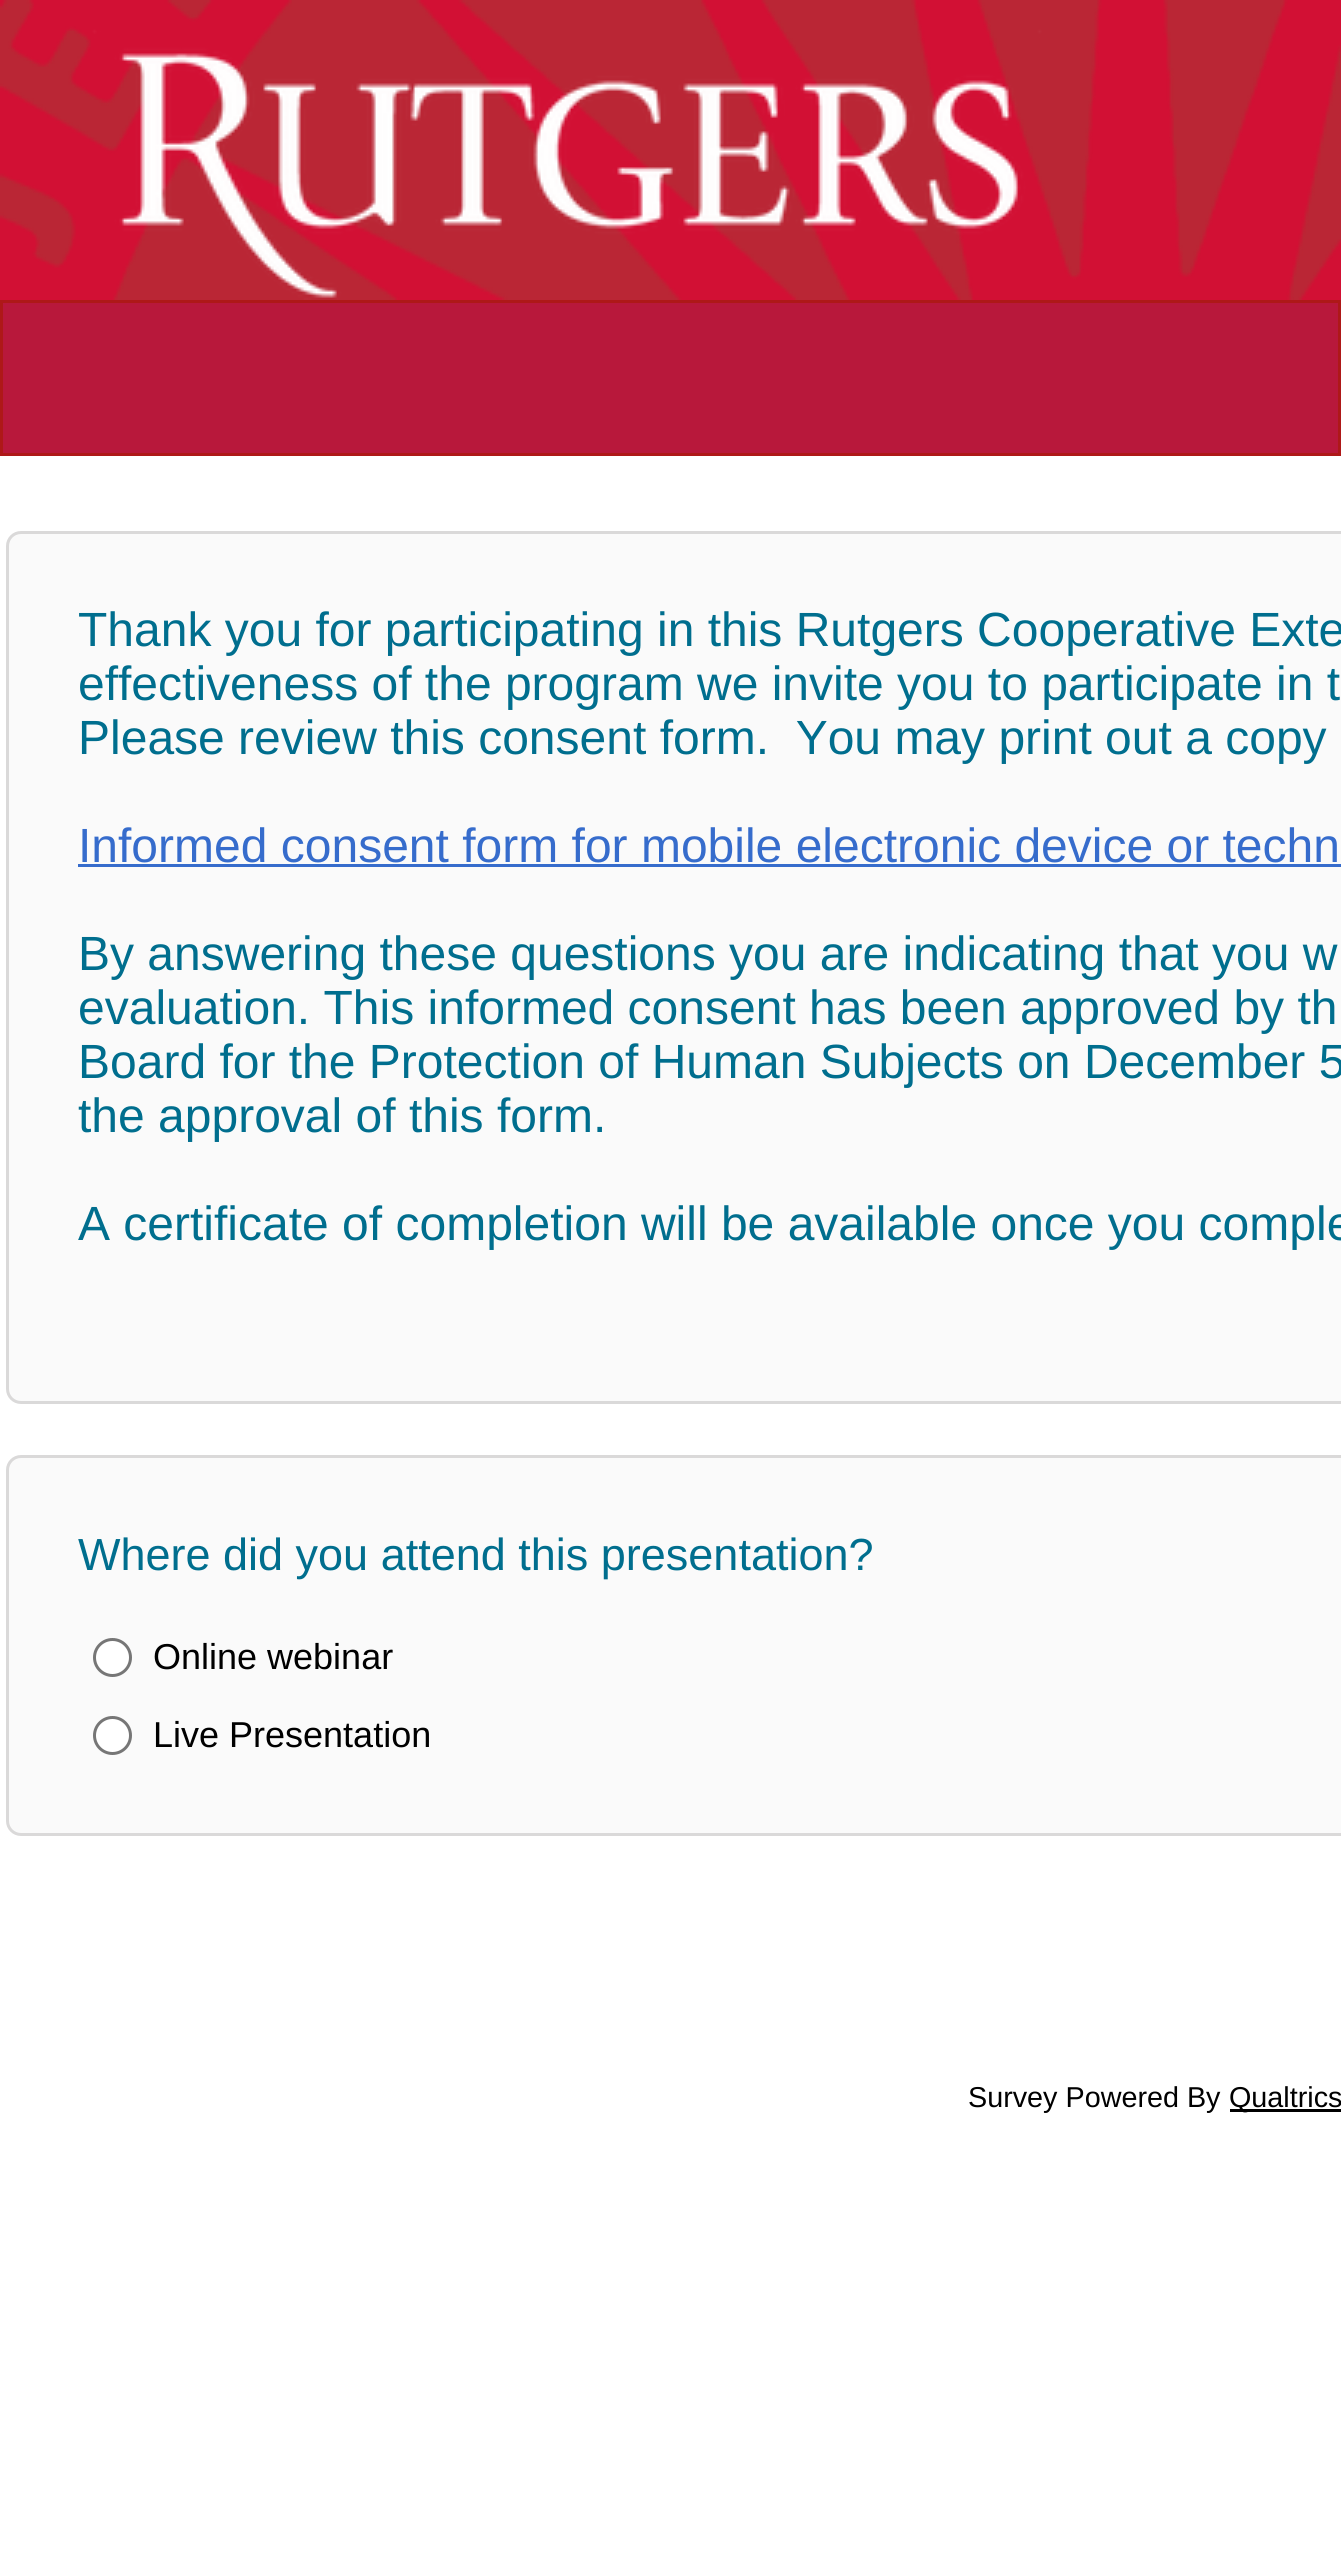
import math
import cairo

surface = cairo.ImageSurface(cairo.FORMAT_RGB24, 1341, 2574)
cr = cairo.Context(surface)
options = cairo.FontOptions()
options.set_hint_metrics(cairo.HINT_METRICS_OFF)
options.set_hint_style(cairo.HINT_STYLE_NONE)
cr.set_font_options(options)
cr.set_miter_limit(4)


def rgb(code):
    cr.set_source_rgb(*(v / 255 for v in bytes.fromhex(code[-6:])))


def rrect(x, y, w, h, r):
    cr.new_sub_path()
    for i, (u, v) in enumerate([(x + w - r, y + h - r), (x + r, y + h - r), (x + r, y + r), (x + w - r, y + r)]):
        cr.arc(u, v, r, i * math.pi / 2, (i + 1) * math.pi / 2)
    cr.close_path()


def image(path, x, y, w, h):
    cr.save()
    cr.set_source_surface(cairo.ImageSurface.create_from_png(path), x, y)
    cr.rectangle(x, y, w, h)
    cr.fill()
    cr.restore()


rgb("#ffffff")
cr.paint()
rgb("#d21034")
cr.rectangle(0, 0, 1341, 300)
cr.fill()
image("img/1.png", 0, 0, 1341, 300)
rgb("#b8183b")
cr.rectangle(1.5, 301.5, 1338, 153)
cr.fill_preserve()
rgb("#ae1818")
cr.set_line_width(3)
cr.stroke()
rgb("#fafafa")
rrect(7.5, 532.5, 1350, 870, 13.5)
cr.fill_preserve()
rgb("#dad9d9")
cr.stroke()
rgb("#366ccc")
cr.rectangle(78, 864, 1263, 3)
cr.fill()
rgb("#fafafa")
rrect(7.5, 1456.5, 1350, 378, 13.5)
cr.fill_preserve()
rgb("#dad9d9")
cr.stroke()
rgb("#ffffff")
cr.arc(112.5, 1657.5, 18, 0, 2 * math.pi)
cr.fill_preserve()
rgb("#767676")
cr.stroke()
rgb("#ffffff")
cr.arc(112.5, 1735.5, 18, 0, 2 * math.pi)
cr.fill_preserve()
rgb("#767676")
cr.stroke()
rgb("#000000")
cr.rectangle(1230, 2109, 111, 3)
cr.fill()
cr.select_font_face("Liberation Sans")
cr.set_font_size(48)
rgb("#006e8e")
for x, y, s in [
    (78, 646, "Thank you for participating in this Rutgers Cooperative Exte"),
    (78, 700, "effectiveness of the program we invite you to participate in t"),
    (78, 754, "Please review this consent form.  You may print out a copy"),
]:
    cr.move_to(x, y)
    cr.show_text(s)
rgb("#366ccc")
cr.move_to(78, 862)
cr.show_text("Informed consent form for mobile electronic device or techn")
rgb("#006e8e")
for x, y, s in [
    (78, 970, "By answering these questions you are indicating that you w"),
    (78, 1024, "evaluation. This informed consent has been approved by th"),
    (78, 1078, "Board for the Protection of Human Subjects on December 5"),
    (78, 1132, "the approval of this form."),
    (78, 1240, "A certificate of completion will be available once you comple"),
]:
    cr.move_to(x, y)
    cr.show_text(s)
cr.set_font_size(45)
cr.move_to(78, 1570)
cr.show_text("Where did you attend this presentation?")
cr.set_font_size(36)
rgb("#000000")
cr.move_to(153, 1669)
cr.show_text("Online webinar")
cr.move_to(153, 1747)
cr.show_text("Live Presentation")
cr.set_font_size(28.75)
cr.move_to(968, 2107)
cr.show_text("Survey Powered By")
cr.move_to(1229, 2107)
cr.show_text("Qualtrics")
surface.write_to_png("page.png")
